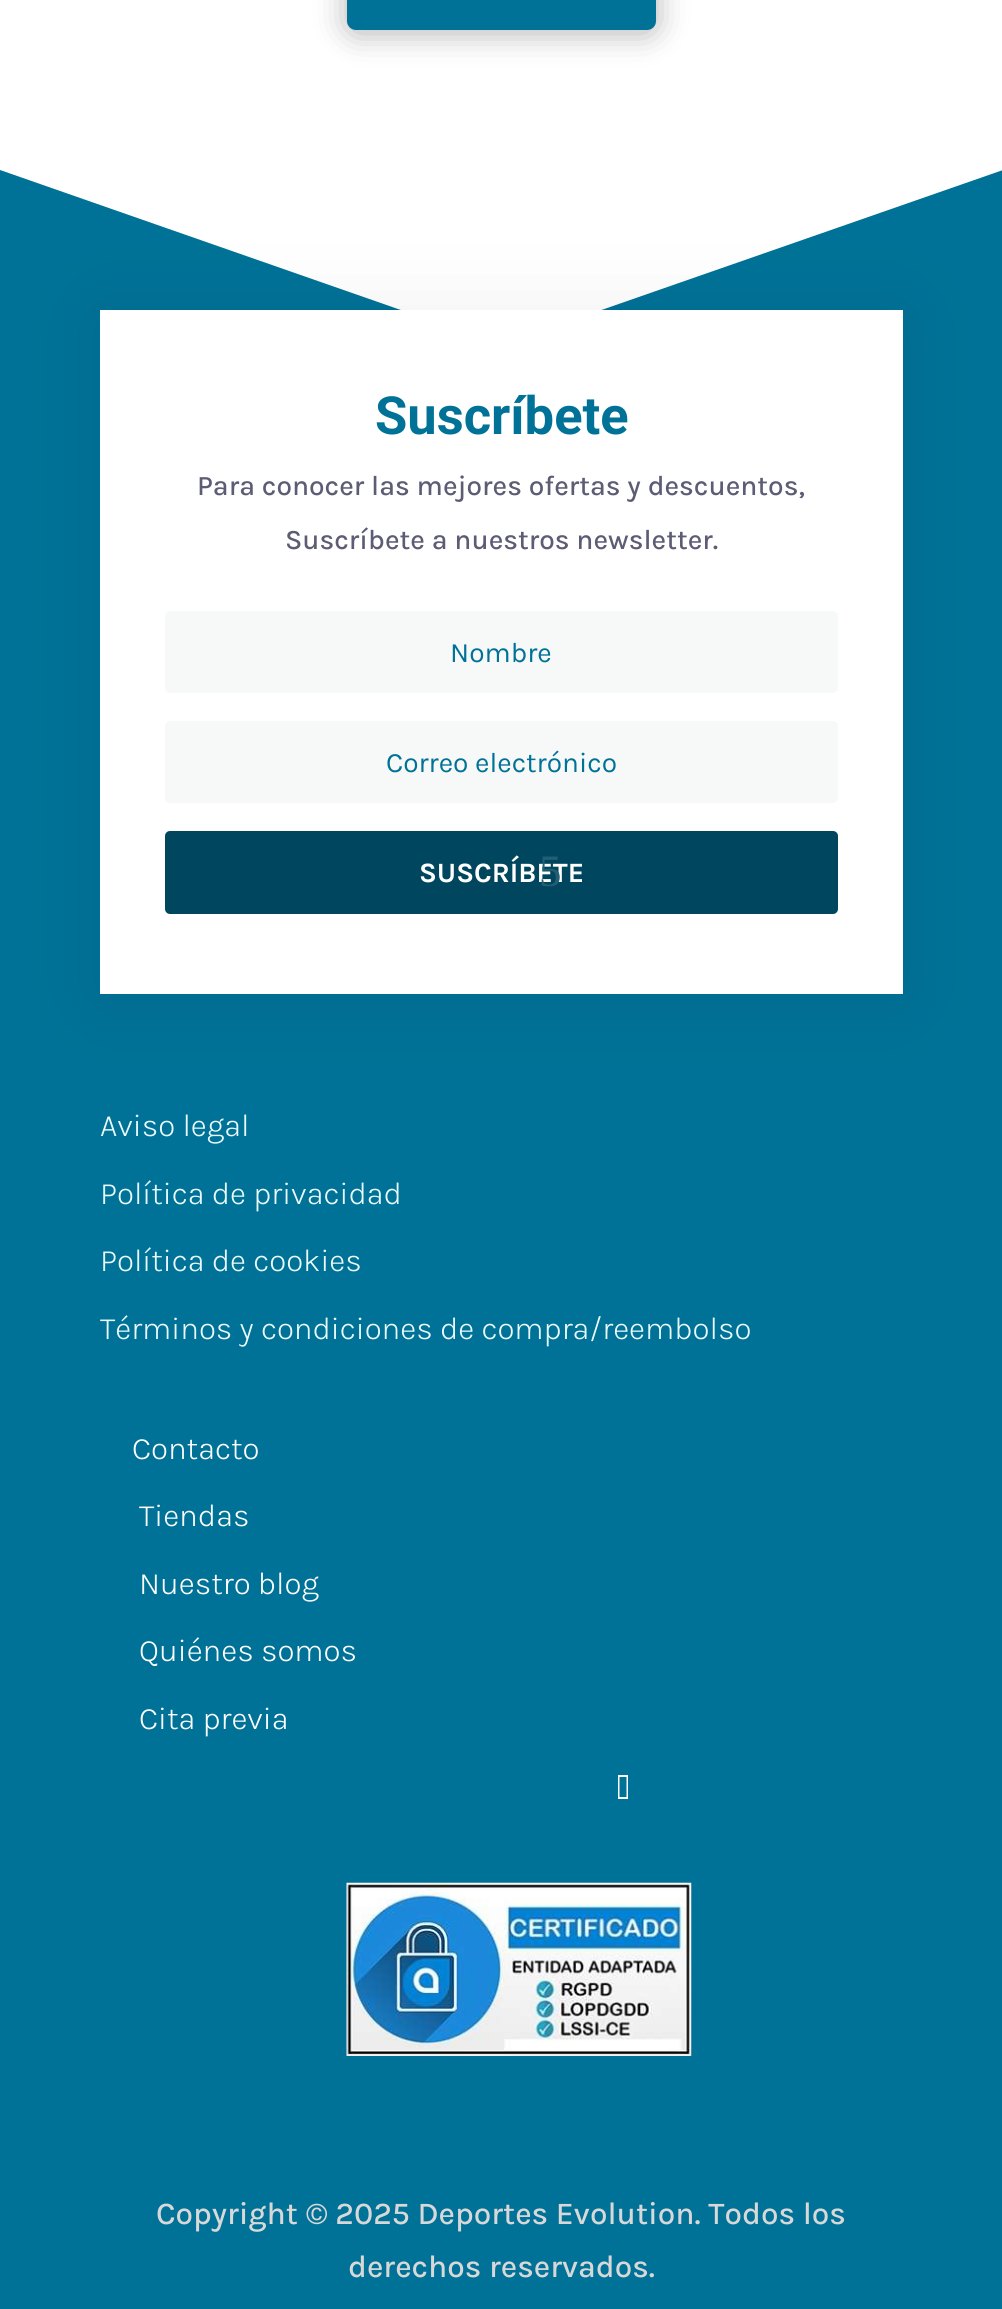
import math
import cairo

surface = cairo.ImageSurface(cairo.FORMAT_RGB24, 1002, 2309)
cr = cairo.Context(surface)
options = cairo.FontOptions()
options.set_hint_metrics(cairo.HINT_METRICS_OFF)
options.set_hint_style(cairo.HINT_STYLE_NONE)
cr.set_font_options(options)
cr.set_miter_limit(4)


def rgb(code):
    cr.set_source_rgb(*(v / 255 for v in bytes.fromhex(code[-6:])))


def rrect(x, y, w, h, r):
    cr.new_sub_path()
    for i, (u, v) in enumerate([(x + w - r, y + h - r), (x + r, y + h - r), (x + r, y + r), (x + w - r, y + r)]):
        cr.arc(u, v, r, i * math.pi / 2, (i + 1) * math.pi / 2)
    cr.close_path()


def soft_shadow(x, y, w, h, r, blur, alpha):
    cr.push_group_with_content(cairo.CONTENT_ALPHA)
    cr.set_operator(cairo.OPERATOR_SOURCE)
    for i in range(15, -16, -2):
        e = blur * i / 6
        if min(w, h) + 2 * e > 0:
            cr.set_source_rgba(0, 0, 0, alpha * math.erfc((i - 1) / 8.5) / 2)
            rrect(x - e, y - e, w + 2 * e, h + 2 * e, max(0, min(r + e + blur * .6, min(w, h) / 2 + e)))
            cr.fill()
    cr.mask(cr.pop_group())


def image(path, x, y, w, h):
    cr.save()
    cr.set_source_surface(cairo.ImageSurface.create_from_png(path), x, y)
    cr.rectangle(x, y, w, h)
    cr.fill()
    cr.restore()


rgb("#ffffff")
cr.paint()
rgb("#000000")
soft_shadow(347, -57, 309, 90, 9, 16, 0.3)
rgb("#007297")
rrect(347, -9, 309, 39, 9)
cr.fill()
cr.rectangle(0, 170, 1002, 2139)
cr.fill()
rgb("#ffffff")
cr.new_path()
cr.move_to(501, 345)
cr.line_to(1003, 170)
cr.line_to(0, 170)
cr.close_path()
cr.fill()
rgb("#000000")
soft_shadow(100, 313, 803, 685, 0, 45.5, 0.07)
rgb("#ffffff")
cr.rectangle(100, 310, 803, 684)
cr.fill()
rgb("#f7f9f9")
rrect(165, 611, 673, 82, 5)
cr.fill()
rrect(165, 721, 673, 82, 5)
cr.fill()
rgb("#00465e")
rrect(165, 831, 673, 83, 5)
cr.fill()
rgb("#ffffff")
cr.new_path()
cr.move_to(619.5, 1797)
cr.line_to(619.5, 1777)
cr.line_to(626.5, 1777)
cr.line_to(626.5, 1797)
cr.close_path()
cr.move_to(618, 1799)
cr.line_to(628, 1799)
cr.line_to(628, 1775)
cr.line_to(618, 1775)
cr.close_path()
cr.fill()
image("img/1.png", 346, 1882, 346, 174)
cr.select_font_face("Roboto", cairo.FONT_SLANT_NORMAL, cairo.FONT_WEIGHT_BOLD)
cr.set_font_size(52.5)
rgb("#007297")
cr.move_to(375, 434)
cr.show_text("Suscríbete")
cr.select_font_face("Karla Medium")
cr.set_font_size(28)
rgb("#5d5c75")
cr.move_to(197, 495)
cr.show_text("Para conocer las mejores ofertas y descuentos,")
cr.move_to(285, 549)
cr.show_text("Suscríbete a nuestros newsletter.")
cr.select_font_face("Karla")
rgb("#007297")
cr.move_to(450, 662)
cr.show_text("Nombre")
cr.move_to(386, 772)
cr.show_text("Correo electrónico")
cr.select_font_face("Karla", cairo.FONT_SLANT_NORMAL, cairo.FONT_WEIGHT_BOLD)
rgb("#ffffff")
cr.move_to(419, 882)
cr.show_text("SUSCRÍBETE")
cr.select_font_face("Liberation Serif")
cr.set_font_size(45)
rgb("#235f74")
cr.move_to(539, 886)
cr.show_text("5")
cr.select_font_face("Karla Light")
cr.set_font_size(31.5)
rgb("#ebfbfb")
for x, y, s in [
    (100, 1136, "Aviso legal"),
    (100, 1204, "Política de privacidad"),
    (100, 1271, "Política de cookies"),
    (100, 1339, "Términos y condiciones de compra/reembolso"),
]:
    cr.move_to(x, y)
    cr.show_text(s)
rgb("#ffffff")
for x, y, s in [
    (132, 1459, "Contacto"),
    (139, 1526, "Tiendas"),
    (139, 1594, "Nuestro blog"),
    (139, 1661, "Quiénes somos"),
    (139, 1729, "Cita previa"),
]:
    cr.move_to(x, y)
    cr.show_text(s)
cr.select_font_face("Karla Medium")
rgb("#d8d8d8")
cr.move_to(156, 2224)
cr.show_text("Copyright © 2025 Deportes Evolution. Todos los")
cr.move_to(348, 2277)
cr.show_text("derechos reservados.")
surface.write_to_png("page.png")
